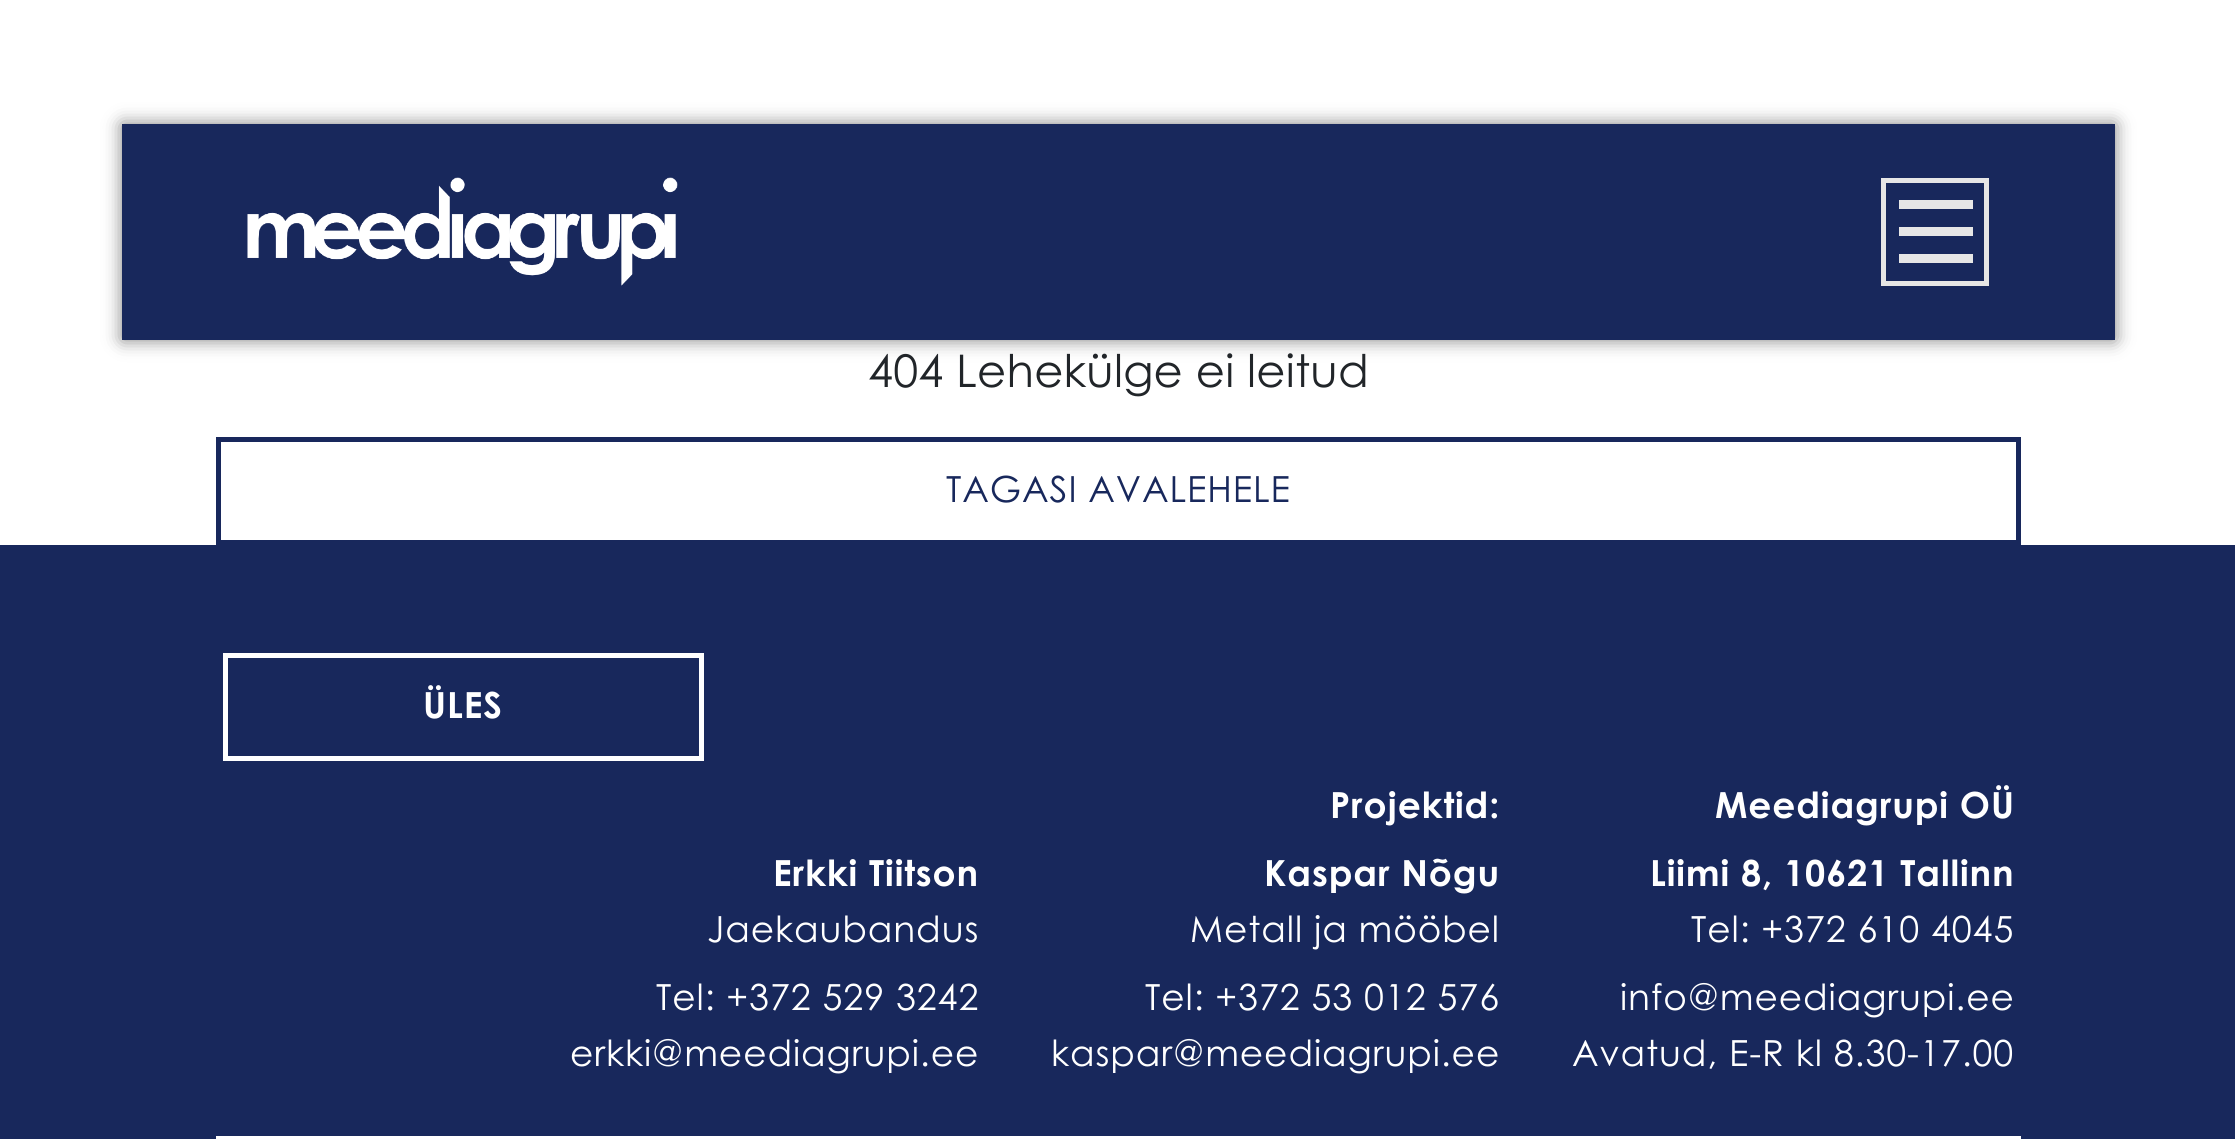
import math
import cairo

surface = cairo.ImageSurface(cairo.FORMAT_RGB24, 2235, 1139)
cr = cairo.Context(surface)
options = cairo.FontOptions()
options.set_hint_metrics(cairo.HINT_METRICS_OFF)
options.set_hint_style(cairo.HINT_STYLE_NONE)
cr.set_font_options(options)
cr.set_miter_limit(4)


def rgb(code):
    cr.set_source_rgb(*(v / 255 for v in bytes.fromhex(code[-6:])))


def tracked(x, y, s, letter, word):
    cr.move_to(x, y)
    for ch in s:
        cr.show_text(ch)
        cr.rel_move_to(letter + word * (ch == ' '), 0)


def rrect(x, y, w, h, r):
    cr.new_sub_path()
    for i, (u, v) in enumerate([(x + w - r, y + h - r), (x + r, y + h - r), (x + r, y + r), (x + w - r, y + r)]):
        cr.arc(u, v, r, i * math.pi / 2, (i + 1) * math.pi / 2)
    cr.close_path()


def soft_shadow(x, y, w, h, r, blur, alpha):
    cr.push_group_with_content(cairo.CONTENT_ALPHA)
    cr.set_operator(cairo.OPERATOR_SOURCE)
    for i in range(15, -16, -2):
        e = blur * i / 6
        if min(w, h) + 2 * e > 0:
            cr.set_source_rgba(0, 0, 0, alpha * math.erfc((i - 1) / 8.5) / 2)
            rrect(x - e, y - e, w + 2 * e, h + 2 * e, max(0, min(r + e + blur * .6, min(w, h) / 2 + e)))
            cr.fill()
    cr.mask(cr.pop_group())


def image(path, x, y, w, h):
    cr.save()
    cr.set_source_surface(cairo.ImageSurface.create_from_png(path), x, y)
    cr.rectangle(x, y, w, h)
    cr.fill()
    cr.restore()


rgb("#ffffff")
cr.paint()
rgb("#000000")
soft_shadow(122, 124, 1993, 216, 0, 9, 0.5)
rgb("#18285c")
cr.rectangle(122, 124, 1993, 216)
cr.fill()
image("img/1.png", 247, 177, 431, 109)
cr.rectangle(1883.5, 180.5, 103, 103)
rgb("#e6e6e6")
cr.set_line_width(5)
cr.stroke()
for x, y, w, h, color in [
    (1899, 200, 74, 9, "#e6e6e6"),
    (1899, 227, 74, 9, "#e6e6e6"),
    (1899, 254, 74, 9, "#e6e6e6"),
]:
    rgb(color)
    cr.rectangle(x, y, w, h)
    cr.fill()
cr.rectangle(218.5, 439.5, 1800, 103)
rgb("#18285c")
cr.stroke()
cr.rectangle(0, 545, 2235, 594)
cr.fill()
cr.rectangle(225.5, 655.5, 476, 103)
rgb("#ffffff")
cr.stroke()
cr.rectangle(216, 1136, 1805, 3)
cr.fill()
cr.select_font_face("Century Gothic")
cr.set_font_size(45)
rgb("#212529")
tracked(868, 387, "404 Lehekülge ei leitud", 0.2, 0)
cr.set_font_size(36)
rgb("#18285c")
tracked(946, 502, "TAGASI AVALEHELE", 0.9, 0)
cr.select_font_face("Century Gothic", cairo.FONT_SLANT_NORMAL, cairo.FONT_WEIGHT_BOLD)
rgb("#ffffff")
tracked(423, 718, "ÜLES", 0.9, 0)
tracked(773, 886, "Erkki Tiitson", 0.9, 0)
cr.select_font_face("Century Gothic")
for x, y, s in [
    (707, 942, "Jaekaubandus"),
    (656, 1010, "Tel: +372 529 3242"),
    (570, 1066, "erkki@meediagrupi.ee"),
]:
    tracked(x, y, s, 0.9, 0)
cr.select_font_face("Century Gothic", cairo.FONT_SLANT_NORMAL, cairo.FONT_WEIGHT_BOLD)
tracked(1330, 818, "Projektid:", 0.9, 0)
tracked(1264, 886, "Kaspar Nõgu", 0.9, 0)
cr.select_font_face("Century Gothic")
for x, y, s in [
    (1190, 942, "Metall ja mööbel"),
    (1145, 1010, "Tel: +372 53 012 576"),
    (1051, 1066, "kaspar@meediagrupi.ee"),
]:
    tracked(x, y, s, 0.9, 0)
cr.select_font_face("Century Gothic", cairo.FONT_SLANT_NORMAL, cairo.FONT_WEIGHT_BOLD)
tracked(1715, 818, "Meediagrupi OÜ", 0.9, 0)
tracked(1650, 886, "Liimi 8, 10621 Tallinn", 0.9, 0)
cr.select_font_face("Century Gothic")
for x, y, s in [
    (1691, 942, "Tel: +372 610 4045"),
    (1620, 1010, "info@meediagrupi.ee"),
    (1572, 1066, "Avatud, E-R kl 8.30-17.00"),
]:
    tracked(x, y, s, 0.9, 0)
surface.write_to_png("page.png")
